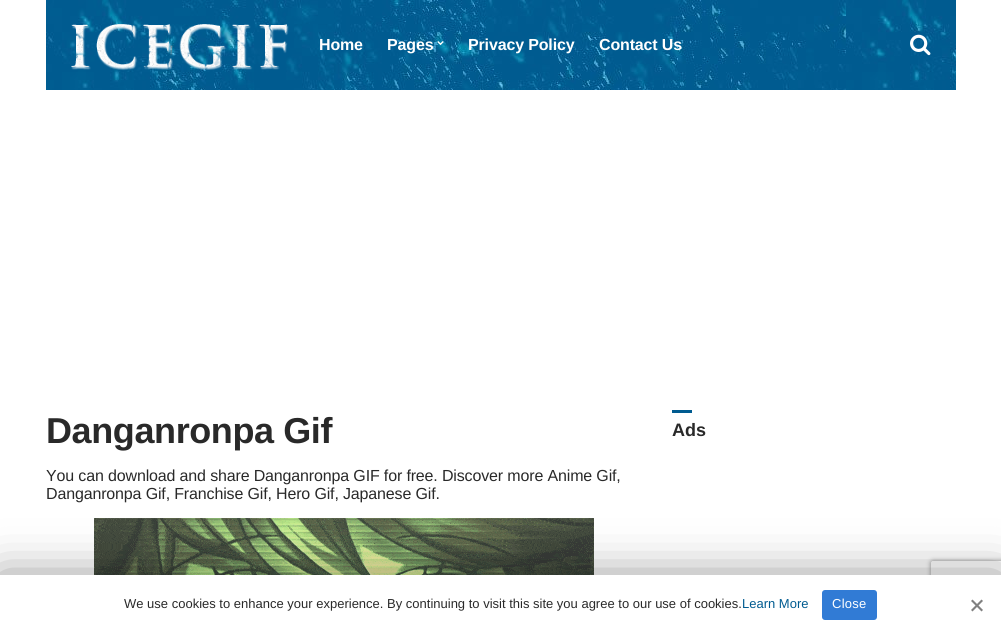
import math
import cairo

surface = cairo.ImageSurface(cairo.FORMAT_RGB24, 1001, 635)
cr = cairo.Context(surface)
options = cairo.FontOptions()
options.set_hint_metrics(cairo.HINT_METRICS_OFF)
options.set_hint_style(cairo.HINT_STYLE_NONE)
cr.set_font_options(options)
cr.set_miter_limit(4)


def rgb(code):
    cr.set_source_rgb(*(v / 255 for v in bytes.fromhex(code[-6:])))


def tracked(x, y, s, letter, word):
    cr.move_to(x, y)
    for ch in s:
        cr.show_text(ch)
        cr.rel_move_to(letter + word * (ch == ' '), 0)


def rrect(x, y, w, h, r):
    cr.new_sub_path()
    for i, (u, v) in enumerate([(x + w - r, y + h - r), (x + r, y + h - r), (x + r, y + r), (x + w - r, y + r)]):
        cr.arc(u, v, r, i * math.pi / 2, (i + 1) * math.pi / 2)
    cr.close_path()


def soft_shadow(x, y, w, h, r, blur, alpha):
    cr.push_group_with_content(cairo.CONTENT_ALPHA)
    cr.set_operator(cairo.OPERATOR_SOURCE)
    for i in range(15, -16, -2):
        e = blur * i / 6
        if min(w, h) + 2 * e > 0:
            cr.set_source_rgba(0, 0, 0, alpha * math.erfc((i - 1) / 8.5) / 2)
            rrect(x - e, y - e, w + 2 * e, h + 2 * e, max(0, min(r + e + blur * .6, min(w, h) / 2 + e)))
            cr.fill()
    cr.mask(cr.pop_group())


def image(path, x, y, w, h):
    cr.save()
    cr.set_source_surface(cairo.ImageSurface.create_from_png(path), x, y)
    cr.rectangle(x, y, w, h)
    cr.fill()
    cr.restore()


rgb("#ffffff")
cr.paint()
image("img/1.png", 46, 0, 910, 90)
image("img/2.png", 71, 24, 218, 46)
image("img/3.png", 437, 41, 7, 5)
image("img/4.png", 910, 34, 21, 22)
image("img/5.png", 94, 518, 500, 57)
rgb("#005b90")
cr.rectangle(672, 410, 20, 3)
cr.fill()
rgb("#000000")
soft_shadow(0, 580, 1001, 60, 0, 25, 0.5)
cr.save()
cr.set_fill_rule(cairo.FILL_RULE_EVEN_ODD)
cr.new_path()
cr.move_to(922, 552)
cr.line_to(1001, 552)
cr.line_to(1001, 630)
cr.line_to(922, 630)
cr.close_path()
cr.move_to(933, 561)
cr.line_to(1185, 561)
cr.curve_to(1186, 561, 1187, 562, 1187, 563)
cr.line_to(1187, 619)
cr.curve_to(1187, 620, 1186, 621, 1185, 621)
cr.line_to(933, 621)
cr.curve_to(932, 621, 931, 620, 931, 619)
cr.line_to(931, 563)
cr.curve_to(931, 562, 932, 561, 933, 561)
cr.close_path()
cr.clip()
rgb("#808080")
soft_shadow(931, 561, 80, 60, 2, 2.5, 1)
cr.restore()
rgb("#ffffff")
cr.rectangle(0, 575, 1001, 60)
cr.fill()
rgb("#317bd5")
rrect(822, 590, 55, 30, 3)
cr.fill()
rgb("#808080")
cr.new_path()
cr.move_to(981.5, 599.5)
cr.line_to(983, 601)
cr.line_to(972.5, 611.5)
cr.line_to(971, 610)
cr.close_path()
cr.fill()
cr.new_path()
cr.move_to(971, 601)
cr.line_to(972.5, 599.5)
cr.line_to(983, 610)
cr.line_to(981.5, 611.5)
cr.close_path()
cr.fill()
cr.select_font_face("Liberation Sans", cairo.FONT_SLANT_NORMAL, cairo.FONT_WEIGHT_BOLD)
cr.set_font_size(16)
rgb("#ffffff")
for x, y, s in [
    (319, 50, "Home"),
    (387, 50, "Pages"),
    (468, 50, "Privacy Policy"),
    (599, 50, "Contact Us"),
]:
    tracked(x, y, s, -0.15, 0)
cr.set_font_size(36)
rgb("#292929")
tracked(46, 443, "Danganronpa Gif", -0.4, 0)
cr.select_font_face("Liberation Sans")
cr.set_font_size(16)
tracked(46, 481, "You can download and share Danganronpa GIF for free. Discover more Anime Gif,", -0.15, 0)
tracked(46, 499, "Danganronpa Gif, Franchise Gif, Hero Gif, Japanese Gif.", -0.15, 0)
cr.select_font_face("Liberation Sans", cairo.FONT_SLANT_NORMAL, cairo.FONT_WEIGHT_BOLD)
cr.set_font_size(18)
cr.move_to(672, 436)
cr.show_text("Ads")
cr.select_font_face("Liberation Sans")
cr.set_font_size(13)
cr.move_to(124, 608)
cr.show_text("We use cookies to enhance your experience. By continuing to visit this site you agree to our use of cookies.")
rgb("#005b90")
cr.move_to(742, 608)
cr.show_text("Learn More")
rgb("#ffffff")
tracked(832, 608, "Close", 0.25, 0)
surface.write_to_png("page.png")
